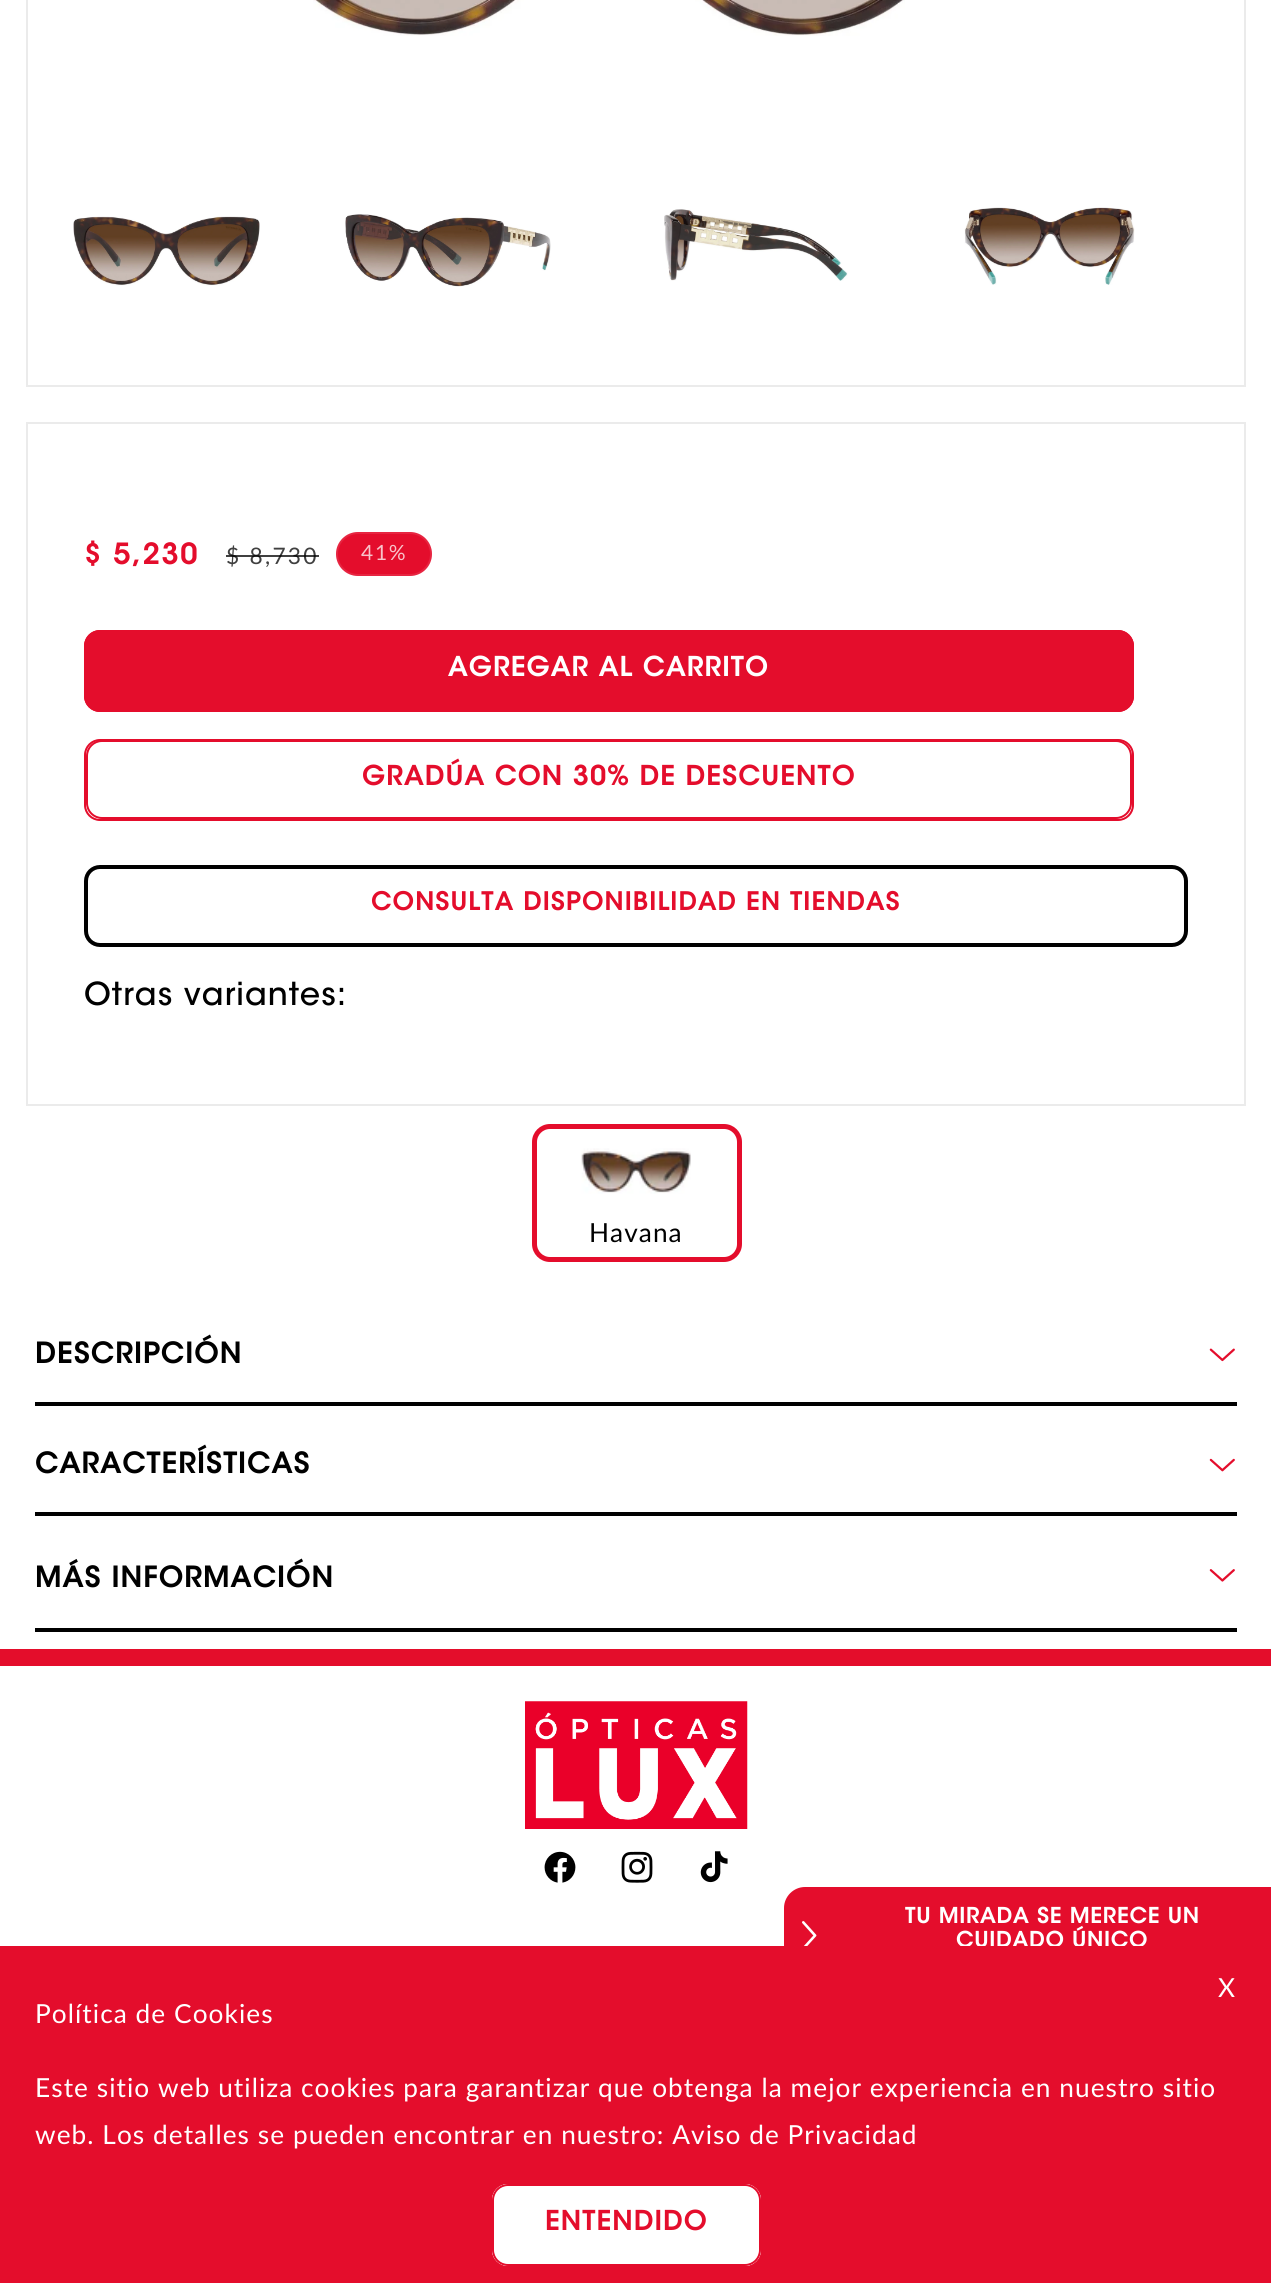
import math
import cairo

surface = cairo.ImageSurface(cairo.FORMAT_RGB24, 1271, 2283)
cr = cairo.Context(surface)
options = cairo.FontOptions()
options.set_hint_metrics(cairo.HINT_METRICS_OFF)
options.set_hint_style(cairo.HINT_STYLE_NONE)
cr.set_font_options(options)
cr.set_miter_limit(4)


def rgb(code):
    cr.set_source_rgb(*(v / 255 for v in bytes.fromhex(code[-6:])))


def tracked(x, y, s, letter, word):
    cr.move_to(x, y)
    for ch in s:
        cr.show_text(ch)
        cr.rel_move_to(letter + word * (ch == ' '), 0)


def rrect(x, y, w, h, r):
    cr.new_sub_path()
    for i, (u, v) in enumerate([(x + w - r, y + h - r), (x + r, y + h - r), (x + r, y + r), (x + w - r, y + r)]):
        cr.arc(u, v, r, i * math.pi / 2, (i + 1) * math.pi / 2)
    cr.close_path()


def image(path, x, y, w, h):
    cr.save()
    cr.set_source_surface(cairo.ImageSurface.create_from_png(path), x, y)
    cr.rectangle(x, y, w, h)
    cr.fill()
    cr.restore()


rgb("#ffffff")
cr.paint()
cr.rectangle(27, -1, 1218, 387)
rgb("#ebebeb")
cr.stroke()
image("img/1.png", 313, 0, 592, 36)
image("img/2.png", 73, 216, 187, 70)
image("img/3.png", 345, 214, 206, 73)
image("img/4.png", 664, 209, 184, 72)
image("img/5.png", 964, 207, 171, 78)
cr.rectangle(27, 423, 1218, 682)
cr.stroke()
rgb("#e40d2c")
rrect(336, 532, 96, 44, 22)
cr.fill()
rrect(337, 533, 94, 42, 21)
cr.set_source_rgba(1, 1, 1, 0.1)
cr.stroke()
rgb("#e40d2c")
rrect(84, 630, 1050, 82, 16)
cr.fill()
rrect(85, 631, 1048, 80, 15)
cr.stroke()
rrect(85, 740, 1048, 80, 15)
cr.stroke()
rrect(87, 741, 1044, 77, 15)
cr.stroke()
rrect(86, 867, 1100, 78, 14)
rgb("#000000")
cr.set_line_width(4)
cr.stroke()
rrect(534.5, 1126.5, 205, 133, 15.5)
rgb("#e40d2c")
cr.set_line_width(5)
cr.stroke()
image("img/6.png", 581, 1148, 110, 46)
rgb("#000000")
cr.rectangle(35, 1402, 1202, 4)
cr.fill()
image("img/7.png", 1209, 1348, 26, 14)
cr.rectangle(35, 1512, 1202, 4)
cr.fill()
image("img/8.png", 1209, 1458, 26, 14)
cr.rectangle(35, 1628, 1202, 4)
cr.fill()
image("img/9.png", 1209, 1569, 26, 13)
rgb("#e40d2c")
cr.new_path()
cr.move_to(805, 1887)
cr.line_to(833, 1887)
cr.line_to(833, 1985)
cr.line_to(805, 1985)
cr.curve_to(793.5, 1985, 784, 1975.5, 784, 1964)
cr.line_to(784, 1908)
cr.curve_to(784, 1896.5, 793.5, 1887, 805, 1887)
cr.close_path()
cr.fill()
image("img/10.png", 802, 1921, 15, 25)
cr.rectangle(833, 1887, 438, 59)
cr.fill()
rgb("#e40d2b")
cr.rectangle(0, 1649, 1271, 17)
cr.fill()
image("img/11.png", 525, 1701, 223, 128)
image("img/12.png", 544, 1851, 32, 32)
image("img/13.png", 621, 1851, 32, 32)
image("img/14.png", 700, 1851, 28, 32)
cr.select_font_face("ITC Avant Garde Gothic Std", cairo.FONT_SLANT_NORMAL, cairo.FONT_WEIGHT_BOLD)
cr.set_font_size(28)
rgb("#e40d2c")
tracked(84, 564, "$ 5,230", 2.25, 0)
cr.select_font_face("Lato")
cr.set_font_size(22.75)
rgb("#404040")
tracked(226, 564, "$ 8,730", 2.25, 0)
cr.set_source_rgba(0, 0, 0, 0.75)
cr.rectangle(226, 555, 93, 2)
cr.fill()
cr.set_font_size(21)
rgb("#f8c3ca")
tracked(361, 560, "41%", 1.75, 0)
cr.select_font_face("ITC Avant Garde Gothic Std", cairo.FONT_SLANT_NORMAL, cairo.FONT_WEIGHT_BOLD)
cr.set_font_size(26.25)
rgb("#ffffff")
tracked(448, 676, "AGREGAR AL CARRITO", 1.75, 0)
rgb("#e40d2c")
tracked(362, 785, "GRADÚA CON 30% DE DESCUENTO", 1.75, 0)
cr.set_font_size(24.5)
tracked(371, 910, "CONSULTA DISPONIBILIDAD EN TIENDAS", 1.75, 0)
cr.select_font_face("ITC Avant Garde Gothic Std Medium")
cr.set_font_size(31.5)
rgb("#000000")
tracked(84, 1005, "Otras variantes:", 1.05, 0)
cr.select_font_face("Lato")
cr.set_font_size(26.25)
tracked(589, 1242, "Havana", 1.05, 0)
cr.select_font_face("ITC Avant Garde Gothic Std", cairo.FONT_SLANT_NORMAL, cairo.FONT_WEIGHT_BOLD)
cr.set_font_size(28)
for x, y, s in [
    (35, 1363, "DESCRIPCIÓN"),
    (35, 1473, "CARACTERÍSTICAS"),
    (35, 1587, "MÁS INFORMACIÓN"),
]:
    tracked(x, y, s, 1.7, 0)
cr.set_font_size(21)
rgb("#ffffff")
tracked(905, 1923, "TU MIRADA SE MERECE UN", 1.25, 0)
tracked(956, 1947, "CUIDADO ÚNICO", 1.25, 0)
rgb("#e40d2c")
cr.rectangle(0, 1946, 1271, 337)
cr.fill()
cr.select_font_face("Lato")
cr.set_font_size(26.25)
rgb("#ffffff")
for x, y, s in [
    (1218, 1997, "X"),
    (35, 2023, "Política de Cookies"),
    (35, 2097, "Este sitio web utiliza cookies para garantizar que obtenga la mejor experiencia en nuestro sitio"),
    (35, 2144, "web. Los detalles se pueden encontrar en nuestro: Aviso de Privacidad"),
]:
    tracked(x, y, s, 1.05, 0)
rrect(492, 2184, 269, 82, 16)
cr.fill()
rrect(493, 2185, 267, 80, 15)
cr.set_line_width(2)
cr.stroke()
rrect(493, 2185, 267, 80, 15)
rgb("#e40d2c")
cr.stroke()
cr.select_font_face("ITC Avant Garde Gothic Std", cairo.FONT_SLANT_NORMAL, cairo.FONT_WEIGHT_BOLD)
tracked(545, 2230, "ENTENDIDO", 1.75, 0)
surface.write_to_png("page.png")
